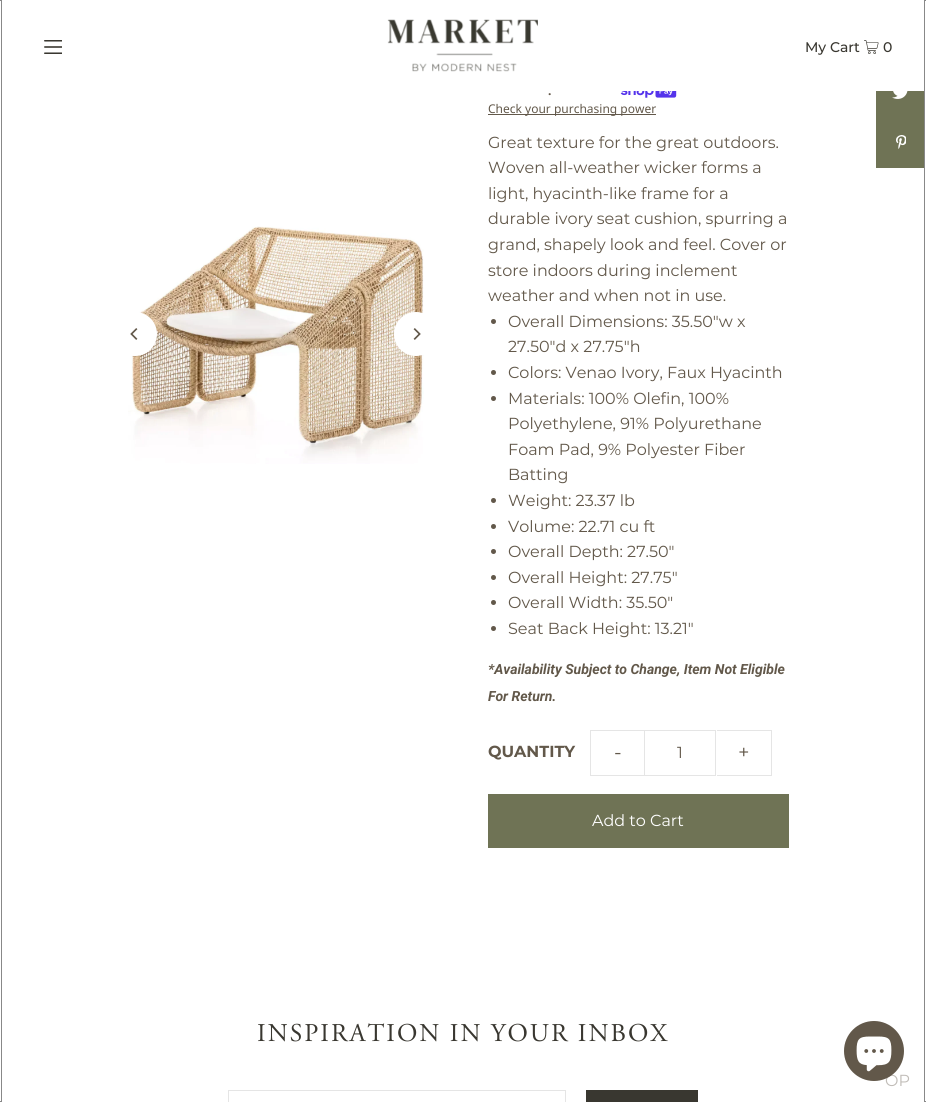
import math
import cairo

surface = cairo.ImageSurface(cairo.FORMAT_RGB24, 926, 1102)
cr = cairo.Context(surface)
options = cairo.FontOptions()
options.set_hint_metrics(cairo.HINT_METRICS_OFF)
options.set_hint_style(cairo.HINT_STYLE_NONE)
cr.set_font_options(options)
cr.set_miter_limit(4)


def rgb(code):
    cr.set_source_rgb(*(v / 255 for v in bytes.fromhex(code[-6:])))


def tracked(x, y, s, letter, word):
    cr.move_to(x, y)
    for ch in s:
        cr.show_text(ch)
        cr.rel_move_to(letter + word * (ch == ' '), 0)


def image(path, x, y, w, h):
    cr.save()
    cr.set_source_surface(cairo.ImageSurface.create_from_png(path), x, y)
    cr.rectangle(x, y, w, h)
    cr.fill()
    cr.restore()


rgb("#ffffff")
cr.paint()
cr.rectangle(-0.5, 0.5, 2, 1101)
rgb("#888888")
cr.set_line_width(1)
cr.stroke()
image("img/1.png", 44, 40, 18, 14)
image("img/2.png", 387, 19, 151, 53)
image("img/3.png", 864, 40, 15, 14)
image("img/4.png", 128, 226, 296, 238)
rgb("#ffffff")
cr.arc(135, 334, 22, 0, 2 * math.pi)
cr.fill()
image("img/5.png", 130, 328, 8, 12)
cr.arc(416, 334, 22, 0, 2 * math.pi)
cr.fill()
image("img/6.png", 413, 328, 8, 12)
image("img/7.png", 620, 91, 57, 7)
rgb("#62584a")
cr.rectangle(488, 114, 168, 1)
cr.fill()
cr.arc(493.5, 321.5, 2.5, 0, 2 * math.pi)
cr.fill()
cr.arc(493.5, 372.5, 2.5, 0, 2 * math.pi)
cr.fill()
cr.arc(493.5, 398.5, 2.5, 0, 2 * math.pi)
cr.fill()
cr.arc(493.5, 500.5, 2.5, 0, 2 * math.pi)
cr.fill()
cr.arc(493.5, 526.5, 2.5, 0, 2 * math.pi)
cr.fill()
cr.arc(493.5, 551.5, 2.5, 0, 2 * math.pi)
cr.fill()
cr.arc(493.5, 577.5, 2.5, 0, 2 * math.pi)
cr.fill()
cr.arc(493.5, 602.5, 2.5, 0, 2 * math.pi)
cr.fill()
cr.arc(493.5, 628.5, 2.5, 0, 2 * math.pi)
cr.fill()
for x, y, w, h, color in [
    (590, 730, 55, 1, "#e5e5e5"),
    (590, 775, 55, 1, "#e5e5e5"),
    (590, 730, 1, 46, "#e5e5e5"),
]:
    rgb(color)
    cr.rectangle(x, y, w, h)
    cr.fill()
cr.rectangle(644.5, 730.5, 71, 45)
cr.stroke()
for x, y, w, h, color in [
    (717, 730, 55, 1, "#e5e5e5"),
    (771, 730, 1, 46, "#e5e5e5"),
    (717, 775, 55, 1, "#e5e5e5"),
    (488, 794, 301, 54, "#6f7355"),
    (876, 91, 48, 77, "#6f7355"),
]:
    rgb(color)
    cr.rectangle(x, y, w, h)
    cr.fill()
image("img/8.png", 892, 91, 16, 8)
image("img/9.png", 896, 135, 10, 14)
cr.rectangle(228.5, 1090.5, 337, 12)
rgb("#e5e5e5")
cr.stroke()
rgb("#393730")
cr.rectangle(586, 1090, 112, 12)
cr.fill()
cr.rectangle(924.5, 0.5, 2, 1101)
rgb("#888888")
cr.stroke()
cr.select_font_face("Montserrat Medium")
cr.set_font_size(14)
rgb("#393730")
cr.move_to(805, 52)
cr.show_text("My Cart")
cr.move_to(883, 52)
cr.show_text("0")
cr.select_font_face("Noto Sans", cairo.FONT_SLANT_NORMAL, cairo.FONT_WEIGHT_BOLD)
cr.set_font_size(12)
rgb("#62584a")
cr.move_to(548, 95)
cr.show_text(".")
cr.select_font_face("Noto Sans")
cr.move_to(488, 113)
cr.show_text("Check your purchasing power")
cr.select_font_face("Montserrat")
cr.set_font_size(16)
for x, y, s in [
    (488, 148, "Great texture for the great outdoors."),
    (488, 173, "Woven all-weather wicker forms a"),
    (488, 199, "light, hyacinth-like frame for a"),
    (488, 224, "durable ivory seat cushion, spurring a"),
    (488, 250, "grand, shapely look and feel. Cover or"),
    (488, 276, "store indoors during inclement"),
    (488, 301, "weather and when not in use."),
    (508, 327, "Overall Dimensions: 35.50\"w x"),
    (508, 352, "27.50\"d x 27.75\"h"),
    (508, 378, "Colors: Venao Ivory, Faux Hyacinth"),
    (508, 404, "Materials: 100% Olefin, 100%"),
    (508, 429, "Polyethylene, 91% Polyurethane"),
    (508, 455, "Foam Pad, 9% Polyester Fiber"),
    (508, 480, "Batting"),
    (508, 506, "Weight: 23.37 lb"),
    (508, 532, "Volume: 22.71 cu ft"),
    (508, 557, "Overall Depth: 27.50\""),
    (508, 583, "Overall Height: 27.75\""),
    (508, 608, "Overall Width: 35.50\""),
    (508, 634, "Seat Back Height: 13.21\""),
]:
    cr.move_to(x, y)
    cr.show_text(s)
cr.select_font_face("Roboto", cairo.FONT_SLANT_ITALIC, cairo.FONT_WEIGHT_BOLD)
cr.set_font_size(14)
cr.move_to(488, 674)
cr.show_text("*Availability Subject to Change, Item Not Eligible")
cr.move_to(488, 701)
cr.show_text("For Return.")
cr.select_font_face("Montserrat", cairo.FONT_SLANT_NORMAL, cairo.FONT_WEIGHT_BOLD)
cr.set_font_size(16)
cr.move_to(488, 757)
cr.show_text("QUANTITY")
cr.select_font_face("Montserrat")
cr.set_font_size(20)
cr.move_to(614, 759)
cr.show_text("-")
cr.set_font_size(16)
cr.move_to(677, 758)
cr.show_text("1")
cr.set_font_size(20)
cr.move_to(738, 759)
cr.show_text("+")
cr.set_font_size(16)
rgb("#ffffff")
cr.move_to(592, 826)
cr.show_text("Add to Cart")
cr.select_font_face("Adobe Garamond")
cr.set_font_size(25.6)
rgb("#393730")
tracked(257, 1041, "INSPIRATION IN YOUR INBOX", 2, 0)
cr.select_font_face("Montserrat")
cr.set_font_size(16)
rgb("#c0bcb7")
cr.move_to(885, 1086)
cr.show_text("OP")
rgb("#62584a")
cr.new_path()
cr.arc(874, 1051, 30, 0, 2 * math.pi)
cr.fill()
image("img/10.png", 856, 1036, 36, 36)
surface.write_to_png("page.png")
